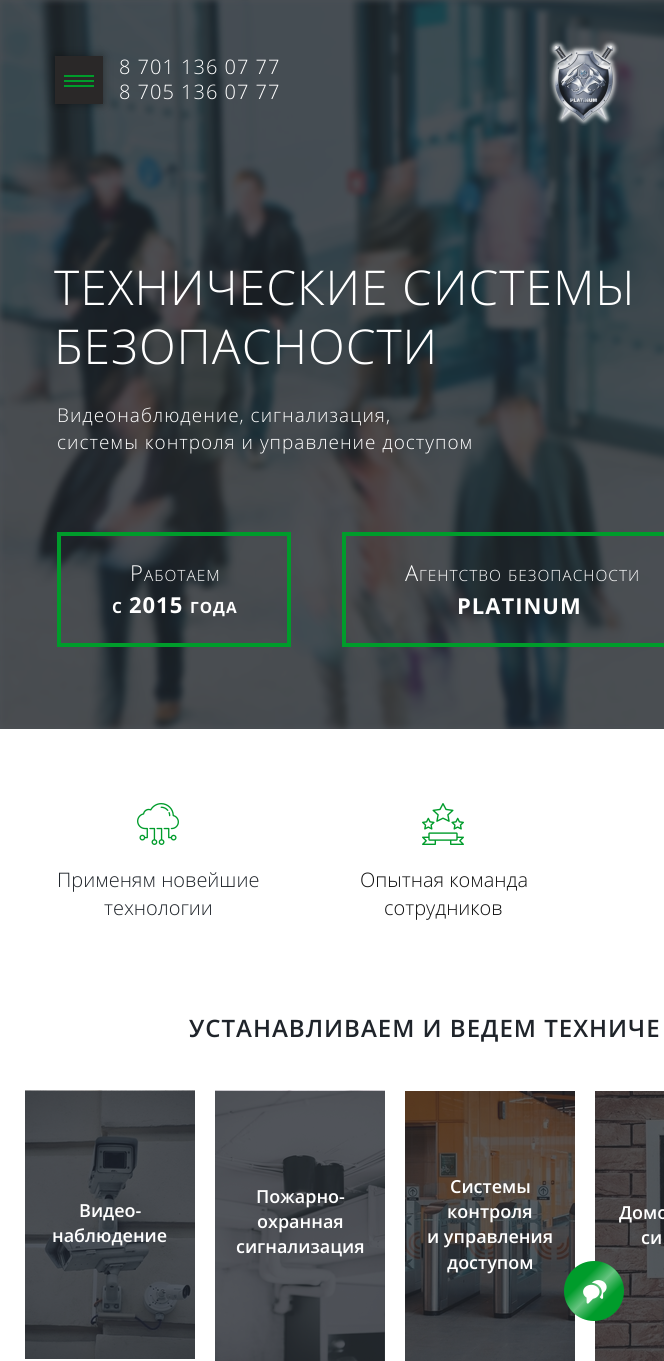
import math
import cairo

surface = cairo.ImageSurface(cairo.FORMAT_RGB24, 664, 1361)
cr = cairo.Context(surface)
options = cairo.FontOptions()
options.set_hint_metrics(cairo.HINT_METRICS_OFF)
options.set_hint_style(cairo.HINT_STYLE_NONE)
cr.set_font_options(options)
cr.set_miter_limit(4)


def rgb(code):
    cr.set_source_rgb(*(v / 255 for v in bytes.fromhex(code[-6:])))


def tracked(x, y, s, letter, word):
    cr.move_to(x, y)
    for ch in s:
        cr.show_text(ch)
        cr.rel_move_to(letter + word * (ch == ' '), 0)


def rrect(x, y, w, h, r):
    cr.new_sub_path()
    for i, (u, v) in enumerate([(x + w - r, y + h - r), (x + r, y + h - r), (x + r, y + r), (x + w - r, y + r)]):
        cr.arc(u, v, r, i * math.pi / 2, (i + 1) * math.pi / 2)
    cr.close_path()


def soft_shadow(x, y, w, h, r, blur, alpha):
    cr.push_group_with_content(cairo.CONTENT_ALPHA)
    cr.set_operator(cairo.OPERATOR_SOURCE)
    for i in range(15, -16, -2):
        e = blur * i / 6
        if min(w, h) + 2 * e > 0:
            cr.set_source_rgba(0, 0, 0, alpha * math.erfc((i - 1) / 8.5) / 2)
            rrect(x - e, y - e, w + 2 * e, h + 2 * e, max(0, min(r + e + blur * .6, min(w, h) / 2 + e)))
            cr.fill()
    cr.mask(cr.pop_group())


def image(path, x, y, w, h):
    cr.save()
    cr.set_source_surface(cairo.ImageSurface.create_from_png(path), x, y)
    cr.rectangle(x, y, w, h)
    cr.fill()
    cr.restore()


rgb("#ffffff")
cr.paint()
rgb("#4c5055")
cr.rectangle(0, 0, 664, 729)
cr.fill()
image("img/1.png", 0, 0, 664, 729)
rgb("#000000")
soft_shadow(55, 56, 48, 48, 0, 5, 0.4)
for x, y, w, h, color in [
    (55, 56, 48, 48, "#2a2828"),
    (64, 75, 30, 2, "#009c2b"),
    (64, 80, 30, 2, "#009c2b"),
    (64, 85, 30, 2, "#009c2b"),
]:
    rgb(color)
    cr.rectangle(x, y, w, h)
    cr.fill()
image("img/2.png", 549, 40, 70, 86)
for x, y, w, h, color in [
    (57, 532, 232, 4, "#009c2b"),
    (57, 643, 232, 4, "#009c2b"),
    (57, 532, 4, 115, "#009c2b"),
    (287, 532, 4, 115, "#009c2b"),
    (342, 532, 322, 4, "#009c2b"),
    (342, 532, 4, 115, "#009c2b"),
    (344, 643, 320, 4, "#009c2b"),
]:
    rgb(color)
    cr.rectangle(x, y, w, h)
    cr.fill()
image("img/3.png", 137, 803, 42, 42)
image("img/4.png", 422, 803, 42, 42)
image("img/5.png", 25, 1090, 170, 269)
image("img/6.png", 215, 1090, 170, 271)
image("img/7.png", 405, 1091, 170, 270)
image("img/8.png", 595, 1091, 69, 270)
cr.arc(594, 1291, 30, 0, 2 * math.pi)
cr.fill()
image("img/9.png", 583, 1280, 24, 24)
gradient = cairo.LinearGradient(588, 1275, 610, 1297)
gradient.add_color_stop_rgba(0, 1, 1, 1, 0)
gradient.add_color_stop_rgba(0.5, 1, 1, 1, 0.4)
gradient.add_color_stop_rgba(1, 1, 1, 1, 0)
cr.set_source(gradient)
cr.new_path()
cr.move_to(565, 1299)
cr.line_to(602, 1262)
cr.curve_to(612, 1265, 620, 1273, 623, 1283)
cr.line_to(586, 1320)
cr.curve_to(576, 1317, 568, 1309, 565, 1299)
cr.close_path()
cr.fill()
cr.select_font_face("Open Sans Light")
cr.set_font_size(20)
rgb("#ffffff")
tracked(119, 74, "8 701 136 07 77", 1, 0)
tracked(119, 99, "8 705 136 07 77", 1, 0)
cr.set_font_size(48)
tracked(54, 305, "ТЕХНИЧЕСКИЕ СИСТЕМЫ", 1, 0)
tracked(54, 364, "БЕЗОПАСНОСТИ", 1, 0)
cr.set_font_size(19)
tracked(57, 422, "Видеонаблюдение, сигнализация,", 1, 0)
tracked(57, 449, "системы контроля и управление доступом", 1, 0)
cr.set_font_size(22)
tracked(130, 581, "Р", 1, 0)
cr.set_font_size(15.5)
tracked(144, 581, "АБОТАЕМ", 1, 0)
cr.set_font_size(22)
tracked(405, 581, "А", 1, 0)
cr.set_font_size(15.5)
tracked(419, 581, "ГЕНТСТВО", 1, 0)
tracked(508, 581, "БЕЗОПАСНОСТИ", 1, 0)
cr.select_font_face("Open Sans", cairo.FONT_SLANT_NORMAL, cairo.FONT_WEIGHT_BOLD)
tracked(112, 613, "С", 1, 0)
cr.set_font_size(22)
tracked(129, 613, "2015", 1, 0)
cr.set_font_size(15.5)
tracked(190, 613, "ГОДА", 1, 0)
cr.set_font_size(22)
tracked(457, 614, "PLATINUM", 1, 0)
cr.select_font_face("Open Sans Light")
cr.set_font_size(20)
rgb("#1f242a")
cr.move_to(57, 887)
cr.show_text("Применям новейшие")
cr.move_to(104, 915)
cr.show_text("технологии")
rgb("#111111")
cr.move_to(360, 887)
cr.show_text("Опытная команда")
cr.move_to(384, 915)
cr.show_text("сотрудников")
cr.select_font_face("Open Sans SemiBold")
cr.set_font_size(24)
rgb("#1f242a")
tracked(189, 1037, "УСТАНАВЛИВАЕМ И ВЕДЕМ ТЕХНИЧЕ", 1, 0)
cr.set_font_size(18)
rgb("#ffffff")
for x, y, s in [
    (79, 1217, "Видео-"),
    (52, 1242, "наблюдение"),
    (256, 1203, "Пожарно-"),
    (257, 1228, "охранная"),
    (236, 1253, "сигнализация"),
    (450, 1193, "Системы"),
    (447, 1218, "контроля"),
    (427, 1243, "и управления"),
    (447, 1269, "доступом"),
    (619, 1219, "Домо"),
    (641, 1244, "си"),
]:
    cr.move_to(x, y)
    cr.show_text(s)
surface.write_to_png("page.png")
